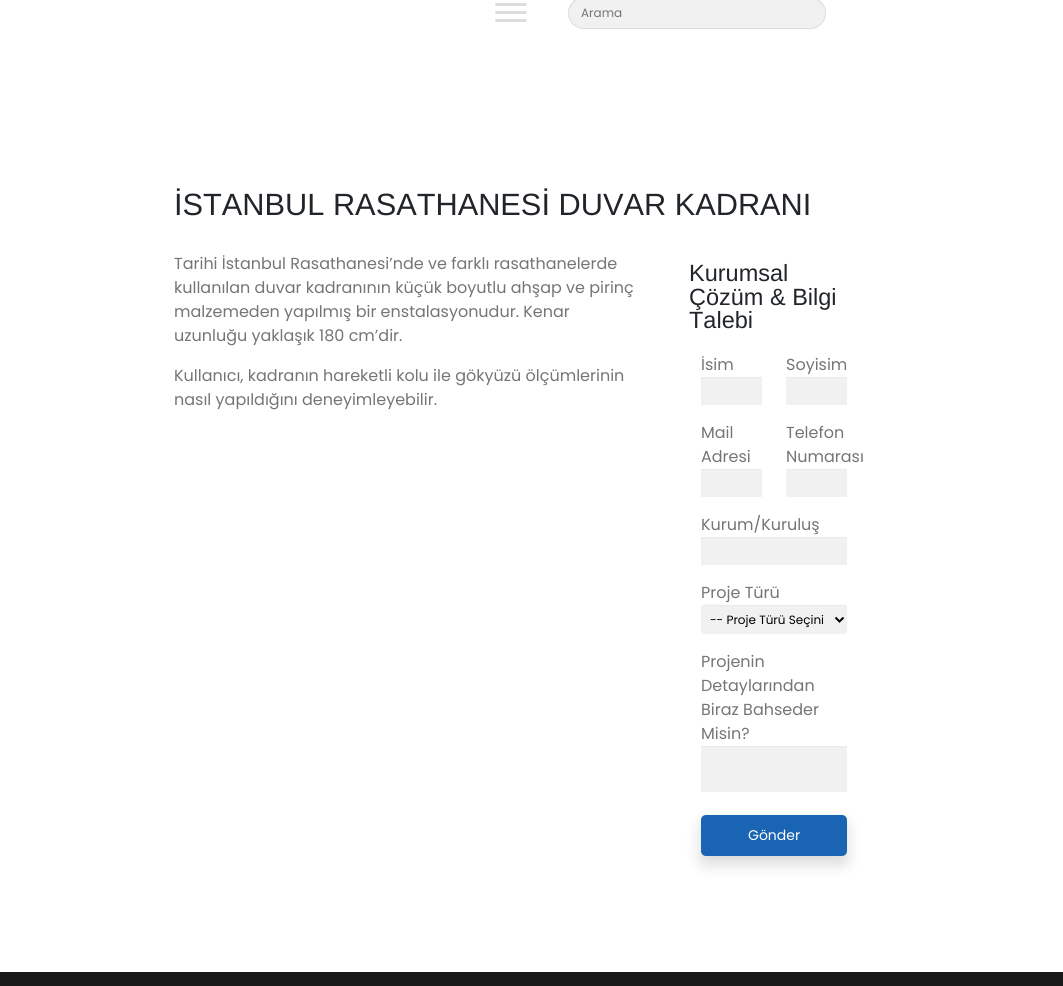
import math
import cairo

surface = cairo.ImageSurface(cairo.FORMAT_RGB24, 1063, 986)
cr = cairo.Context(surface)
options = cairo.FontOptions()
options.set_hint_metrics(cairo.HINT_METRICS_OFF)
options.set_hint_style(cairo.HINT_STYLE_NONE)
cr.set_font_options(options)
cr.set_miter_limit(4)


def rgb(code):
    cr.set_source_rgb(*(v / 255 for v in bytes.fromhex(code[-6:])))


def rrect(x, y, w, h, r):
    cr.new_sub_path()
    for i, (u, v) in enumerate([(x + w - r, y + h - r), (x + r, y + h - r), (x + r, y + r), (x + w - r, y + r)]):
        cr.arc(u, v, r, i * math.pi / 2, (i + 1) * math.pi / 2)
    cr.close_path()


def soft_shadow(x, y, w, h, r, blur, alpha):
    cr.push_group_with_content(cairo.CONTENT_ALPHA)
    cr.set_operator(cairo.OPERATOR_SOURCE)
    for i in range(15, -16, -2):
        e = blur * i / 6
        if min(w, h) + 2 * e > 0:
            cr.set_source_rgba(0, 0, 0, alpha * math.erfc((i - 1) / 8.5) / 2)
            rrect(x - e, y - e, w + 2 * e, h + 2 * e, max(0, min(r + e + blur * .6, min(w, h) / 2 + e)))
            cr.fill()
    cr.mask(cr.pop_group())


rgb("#ffffff")
cr.paint()
rgb("#dddddd")
rrect(495, 3, 32, 3, 1.5)
cr.fill()
rrect(495, 11, 32, 3, 1.5)
cr.fill()
rrect(495, 19, 32, 3, 1.5)
cr.fill()
rgb("#f1f1f1")
rrect(568, -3, 258, 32, 16)
cr.fill()
rgb("#eaeaea")
cr.new_path()
cr.move_to(584, -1)
cr.line_to(810, -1)
cr.curve_to(818, -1, 825, 6, 825, 14)
cr.curve_to(825, 5, 818, -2, 810, -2)
cr.line_to(584, -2)
cr.curve_to(576, -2, 569, 5, 569, 14)
cr.curve_to(569, 6, 576, -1, 584, -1)
cr.close_path()
cr.fill()
rrect(568.5, -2.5, 257, 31, 15.5)
rgb("#dddddd")
cr.set_line_width(1)
cr.stroke()
for x, y, w, h, color in [
    (701, 378, 61, 27, "#f1f1f1"),
    (701, 377, 61, 1, "#eaeaea"),
    (786, 378, 61, 27, "#f1f1f1"),
    (786, 377, 61, 1, "#eaeaea"),
    (701, 470, 61, 27, "#f1f1f1"),
    (701, 469, 61, 1, "#eaeaea"),
    (786, 470, 61, 27, "#f1f1f1"),
    (786, 469, 61, 1, "#eaeaea"),
    (701, 538, 146, 27, "#f1f1f1"),
    (701, 537, 146, 1, "#eaeaea"),
]:
    rgb(color)
    cr.rectangle(x, y, w, h)
    cr.fill()
rgb("#f1f1f1")
rrect(701, 605, 146, 29, 2)
cr.fill()
cr.set_source_rgba(0, 0, 0, 0.03)
cr.new_path()
cr.move_to(703, 606)
cr.line_to(845, 606)
cr.curve_to(846, 606, 847, 607, 847, 608)
cr.curve_to(847, 607, 847, 606, 846, 605)
cr.line_to(727, 605)
cr.curve_to(723, 605, 701, 600, 701, 608)
cr.curve_to(701, 607, 702, 606, 703, 606)
cr.close_path()
cr.fill()
cr.new_path()
cr.move_to(835.5, 617.5)
cr.line_to(839.5, 621.5)
cr.line_to(843.5, 617.5)
rgb("#000000")
cr.set_line_width(2)
cr.stroke()
rgb("#f1f1f1")
cr.rectangle(701, 747, 146, 45)
cr.fill()
rgb("#eaeaea")
cr.rectangle(701, 746, 146, 1)
cr.fill()
rgb("#000000")
soft_shadow(701, 823, 146, 41, 5, 8, 0.15)
rgb("#1965b3")
rrect(701, 815, 146, 41, 5)
cr.fill()
rgb("#181818")
cr.rectangle(0, 972, 1063, 14)
cr.fill()
cr.select_font_face("Poppins")
cr.set_font_size(12)
rgb("#757575")
cr.move_to(581, 17)
cr.show_text("Arama")
cr.select_font_face("Liberation Sans")
cr.set_font_size(30.75)
rgb("#212529")
cr.move_to(174, 215)
cr.show_text("İSTANBUL RASATHANESİ DUVAR KADRANI")
cr.select_font_face("Poppins")
cr.set_font_size(16)
rgb("#757575")
for x, y, s in [
    (174, 269, "Tarihi İstanbul Rasathanesi’nde ve farklı rasathanelerde"),
    (174, 293, "kullanılan duvar kadranının küçük boyutlu ahşap ve pirinç"),
    (174, 317, "malzemeden yapılmış bir enstalasyonudur. Kenar"),
    (174, 341, "uzunluğu yaklaşık 180 cm’dir."),
    (174, 381, "Kullanıcı, kadranın hareketli kolu ile gökyüzü ölçümlerinin"),
    (174, 405, "nasıl yapıldığını deneyimleyebilir."),
]:
    cr.move_to(x, y)
    cr.show_text(s)
cr.select_font_face("Liberation Sans")
cr.set_font_size(23.5)
rgb("#212529")
for x, y, s in [
    (689, 281, "Kurumsal"),
    (689, 305, "Çözüm & Bilgi"),
    (689, 328, "Talebi"),
]:
    cr.move_to(x, y)
    cr.show_text(s)
cr.select_font_face("Poppins")
cr.set_font_size(16)
rgb("#757575")
for x, y, s in [
    (701, 370, "İsim"),
    (786, 370, "Soyisim"),
    (701, 438, "Mail"),
    (701, 462, "Adresi"),
    (786, 438, "Telefon"),
    (786, 462, "Numarası"),
    (701, 530, "Kurum/Kuruluş"),
    (701, 598, "Proje Türü"),
]:
    cr.move_to(x, y)
    cr.show_text(s)
cr.set_font_size(12)
rgb("#000000")
cr.move_to(710, 624)
cr.show_text("-- Proje Türü Seçini")
cr.set_font_size(16)
rgb("#757575")
for x, y, s in [
    (701, 667, "Projenin"),
    (701, 691, "Detaylarından"),
    (701, 715, "Biraz Bahseder"),
    (701, 739, "Misin?"),
]:
    cr.move_to(x, y)
    cr.show_text(s)
cr.set_font_size(14)
rgb("#ffffff")
cr.move_to(748, 840)
cr.show_text("Gönder")
surface.write_to_png("page.png")
